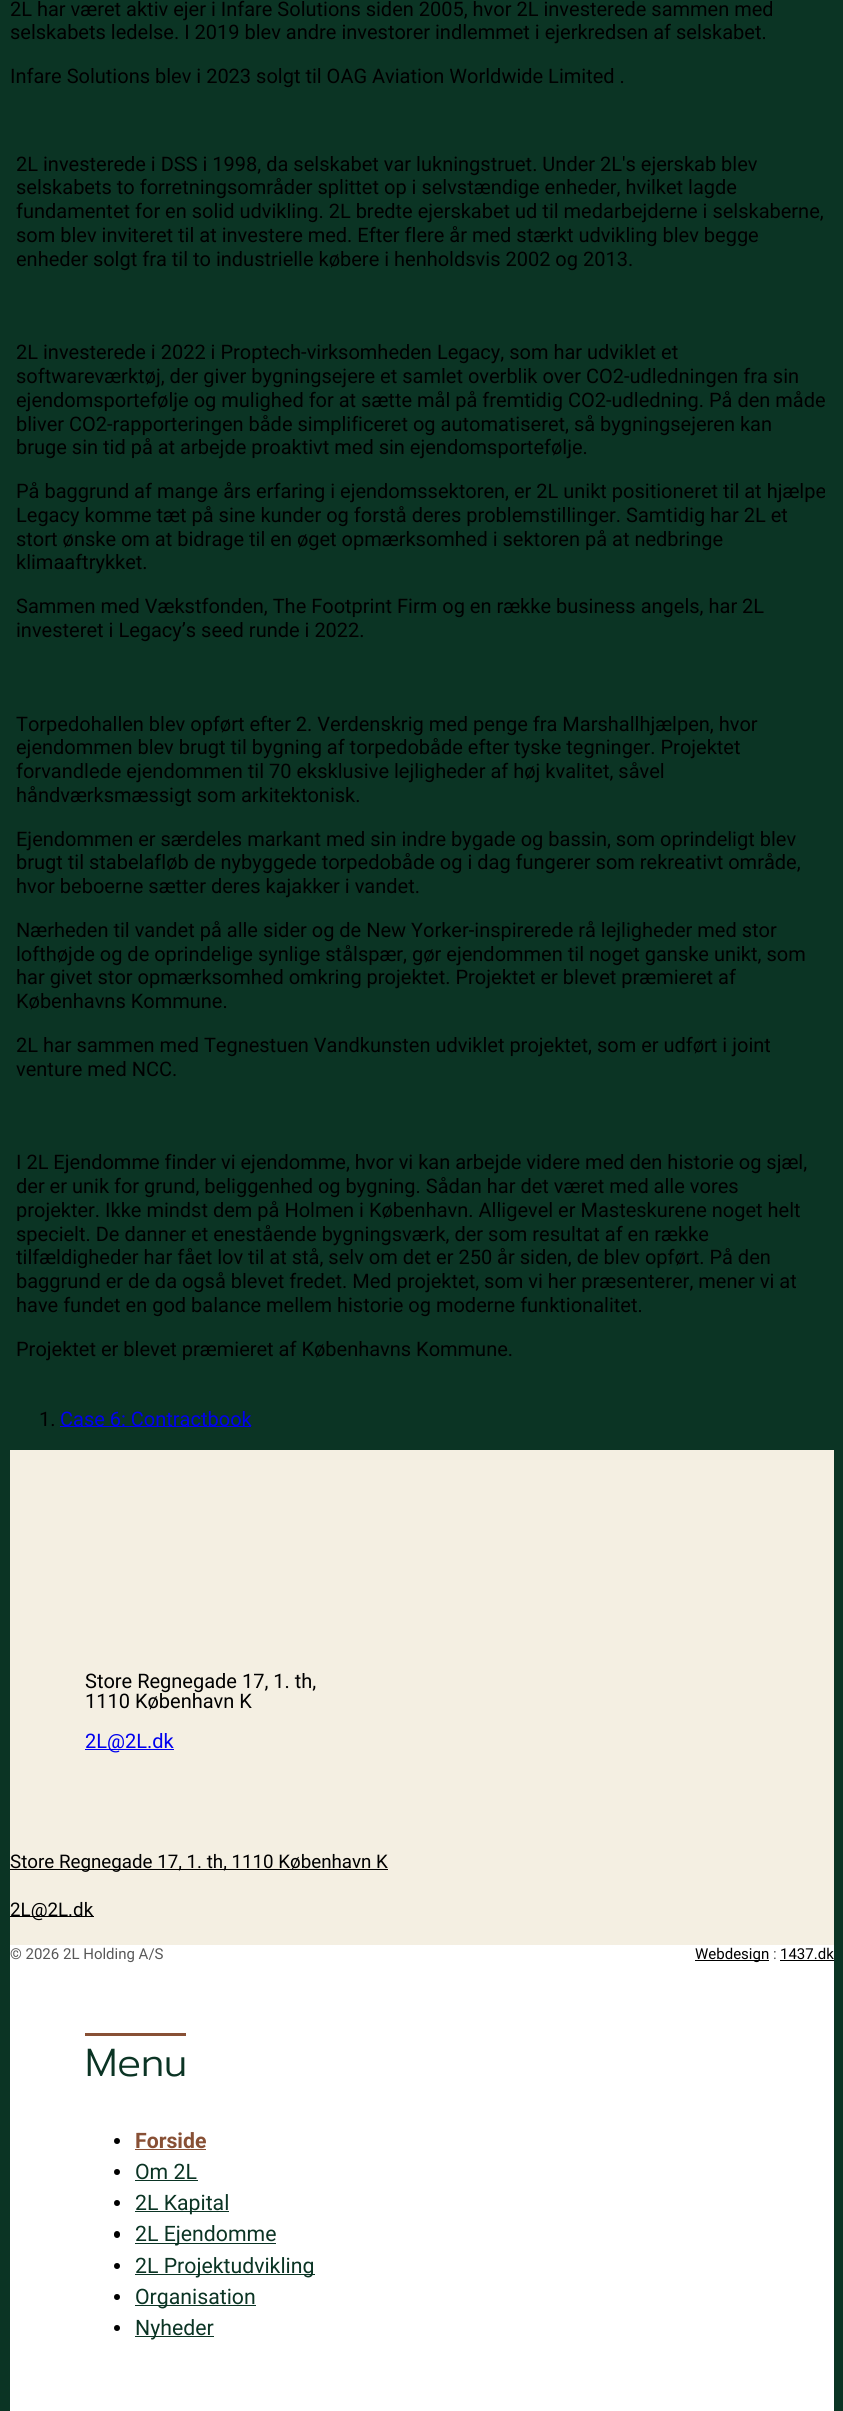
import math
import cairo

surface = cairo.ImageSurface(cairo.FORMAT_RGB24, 843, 2411)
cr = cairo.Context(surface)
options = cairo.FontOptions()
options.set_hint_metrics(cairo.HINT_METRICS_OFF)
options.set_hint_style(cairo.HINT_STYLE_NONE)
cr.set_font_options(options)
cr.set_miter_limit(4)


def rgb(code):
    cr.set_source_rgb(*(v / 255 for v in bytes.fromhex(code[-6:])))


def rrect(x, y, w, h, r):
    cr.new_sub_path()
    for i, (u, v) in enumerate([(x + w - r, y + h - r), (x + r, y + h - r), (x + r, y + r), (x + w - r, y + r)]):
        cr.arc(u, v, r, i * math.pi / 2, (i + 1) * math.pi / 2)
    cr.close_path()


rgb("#0b3424")
cr.paint()
for x, y, w, h, color in [
    (60, 1426, 191, 1, "#0000ee"),
    (10, 1450, 824, 495, "#f4efe2"),
    (10, 1869, 378, 1, "#000000"),
    (10, 1916, 84, 1, "#000000"),
    (10, 1945, 824, 466, "#ffffff"),
    (695, 1960, 74, 1, "#000000"),
    (780, 1960, 54, 1, "#000000"),
    (85, 1749, 89, 1, "#0000ee"),
    (85, 2033, 101, 3, "#885035"),
]:
    rgb(color)
    cr.rectangle(x, y, w, h)
    cr.fill()
rgb("#000000")
cr.arc(117, 2141, 3, 0, 2 * math.pi)
cr.fill()
rgb("#885035")
cr.rectangle(135, 2149, 71, 1)
cr.fill()
rgb("#000000")
cr.arc(117, 2172, 3, 0, 2 * math.pi)
cr.fill()
rgb("#0b3424")
cr.rectangle(135, 2180, 63, 1)
cr.fill()
rgb("#000000")
cr.arc(117, 2203, 3, 0, 2 * math.pi)
cr.fill()
rgb("#0b3424")
cr.rectangle(135, 2211, 94, 1)
cr.fill()
rgb("#000000")
rrect(114, 2231, 6, 7, 3)
cr.fill()
rgb("#0b3424")
cr.rectangle(135, 2243, 141, 1)
cr.fill()
rgb("#000000")
cr.arc(117, 2266, 3, 0, 2 * math.pi)
cr.fill()
rgb("#0b3424")
cr.rectangle(135, 2274, 180, 1)
cr.fill()
rgb("#000000")
cr.arc(117, 2297, 3, 0, 2 * math.pi)
cr.fill()
rgb("#0b3424")
cr.rectangle(135, 2305, 121, 1)
cr.fill()
rgb("#000000")
cr.arc(117, 2328, 3, 0, 2 * math.pi)
cr.fill()
rgb("#0b3424")
cr.rectangle(135, 2336, 79, 1)
cr.fill()
cr.select_font_face("Roboto")
cr.set_font_size(20)
rgb("#000000")
for x, y, s in [
    (10, 16, "2L har været aktiv ejer i Infare Solutions siden 2005, hvor 2L investerede sammen med"),
    (10, 39, "selskabets ledelse. I 2019 blev andre investorer indlemmet i ejerkredsen af selskabet."),
    (10, 83, "Infare Solutions blev i 2023 solgt til OAG Aviation Worldwide Limited ."),
    (16, 171, "2L investerede i DSS i 1998, da selskabet var lukningstruet. Under 2L's ejerskab blev"),
    (16, 194, "selskabets to forretningsområder splittet op i selvstændige enheder, hvilket lagde"),
    (16, 218, "fundamentet for en solid udvikling. 2L bredte ejerskabet ud til medarbejderne i selskaberne,"),
    (16, 242, "som blev inviteret til at investere med. Efter flere år med stærkt udvikling blev begge"),
    (16, 266, "enheder solgt fra til to industrielle købere i henholdsvis 2002 og 2013."),
    (16, 359, "2L investerede i 2022 i Proptech-virksomheden Legacy, som har udviklet et"),
    (16, 383, "softwareværktøj, der giver bygningsejere et samlet overblik over CO2-udledningen fra sin"),
    (16, 407, "ejendomsportefølje og mulighed for at sætte mål på fremtidig CO2-udledning. På den måde"),
    (16, 431, "bliver CO2-rapporteringen både simplificeret og automatiseret, så bygningsejeren kan"),
    (16, 454, "bruge sin tid på at arbejde proaktivt med sin ejendomsportefølje."),
    (16, 498, "På baggrund af mange års erfaring i ejendomssektoren, er 2L unikt positioneret til at hjælpe"),
    (16, 522, "Legacy komme tæt på sine kunder og forstå deres problemstillinger. Samtidig har 2L et"),
    (16, 546, "stort ønske om at bidrage til en øget opmærksomhed i sektoren på at nedbringe"),
    (16, 569, "klimaaftrykket."),
    (16, 613, "Sammen med Vækstfonden, The Footprint Firm og en række business angels, har 2L"),
    (16, 637, "investeret i Legacy’s seed runde i 2022."),
    (16, 731, "Torpedohallen blev opført efter 2. Verdenskrig med penge fra Marshallhjælpen, hvor"),
    (16, 754, "ejendommen blev brugt til bygning af torpedobåde efter tyske tegninger. Projektet"),
    (16, 778, "forvandlede ejendommen til 70 eksklusive lejligheder af høj kvalitet, såvel"),
    (16, 802, "håndværksmæssigt som arkitektonisk."),
    (16, 846, "Ejendommen er særdeles markant med sin indre bygade og bassin, som oprindeligt blev"),
    (16, 869, "brugt til stabelafløb de nybyggede torpedobåde og i dag fungerer som rekreativt område,"),
    (16, 893, "hvor beboerne sætter deres kajakker i vandet."),
    (16, 937, "Nærheden til vandet på alle sider og de New Yorker-inspirerede rå lejligheder med stor"),
    (16, 961, "lofthøjde og de oprindelige synlige stålspær, gør ejendommen til noget ganske unikt, som"),
    (16, 984, "har givet stor opmærksomhed omkring projektet. Projektet er blevet præmieret af"),
    (16, 1008, "Københavns Kommune."),
    (16, 1052, "2L har sammen med Tegnestuen Vandkunsten udviklet projektet, som er udført i joint"),
    (16, 1076, "venture med NCC."),
    (16, 1169, "I 2L Ejendomme finder vi ejendomme, hvor vi kan arbejde videre med den historie og sjæl,"),
    (16, 1193, "der er unik for grund, beliggenhed og bygning. Sådan har det været med alle vores"),
    (16, 1217, "projekter. Ikke mindst dem på Holmen i København. Alligevel er Masteskurene noget helt"),
    (16, 1241, "specielt. De danner et enestående bygningsværk, der som resultat af en række"),
    (16, 1264, "tilfældigheder har fået lov til at stå, selv om det er 250 år siden, de blev opført. På den"),
    (16, 1288, "baggrund er de da også blevet fredet. Med projektet, som vi her præsenterer, mener vi at"),
    (16, 1312, "have fundet en god balance mellem historie og moderne funktionalitet."),
    (16, 1356, "Projektet er blevet præmieret af Københavns Kommune."),
    (39, 1426, "1."),
]:
    cr.move_to(x, y)
    cr.show_text(s)
rgb("#0000ee")
cr.move_to(60, 1426)
cr.show_text("Case 6: Contractbook")
cr.set_font_size(18.75)
rgb("#000000")
cr.move_to(10, 1868)
cr.show_text("Store Regnegade 17, 1. th, 1110 København K")
cr.move_to(10, 1916)
cr.show_text("2L@2L.dk")
cr.set_font_size(15)
rgb("#585858")
cr.move_to(10, 1959)
cr.show_text("© 2026 2L Holding A/S")
rgb("#000000")
cr.move_to(695, 1959)
cr.show_text("Webdesign")
rgb("#585858")
cr.move_to(773, 1959)
cr.show_text(":")
rgb("#000000")
cr.move_to(780, 1959)
cr.show_text("1437.dk")
cr.set_font_size(20)
cr.move_to(85, 1688)
cr.show_text("Store Regnegade 17, 1. th,")
cr.move_to(85, 1708)
cr.show_text("1110 København K")
rgb("#0000ee")
cr.move_to(85, 1748)
cr.show_text("2L@2L.dk")
cr.select_font_face("Prompt Light")
cr.set_font_size(39)
rgb("#0b3424")
cr.move_to(85, 2076)
cr.show_text("Menu")
cr.select_font_face("Roboto", cairo.FONT_SLANT_NORMAL, cairo.FONT_WEIGHT_BOLD)
cr.set_font_size(21.25)
rgb("#885035")
cr.move_to(135, 2148)
cr.show_text("Forside")
cr.select_font_face("Roboto")
rgb("#0b3424")
for x, y, s in [
    (135, 2179, "Om 2L"),
    (135, 2210, "2L Kapital"),
    (135, 2241, "2L Ejendomme"),
    (135, 2273, "2L Projektudvikling"),
    (135, 2304, "Organisation"),
    (135, 2335, "Nyheder"),
]:
    cr.move_to(x, y)
    cr.show_text(s)
surface.write_to_png("page.png")
